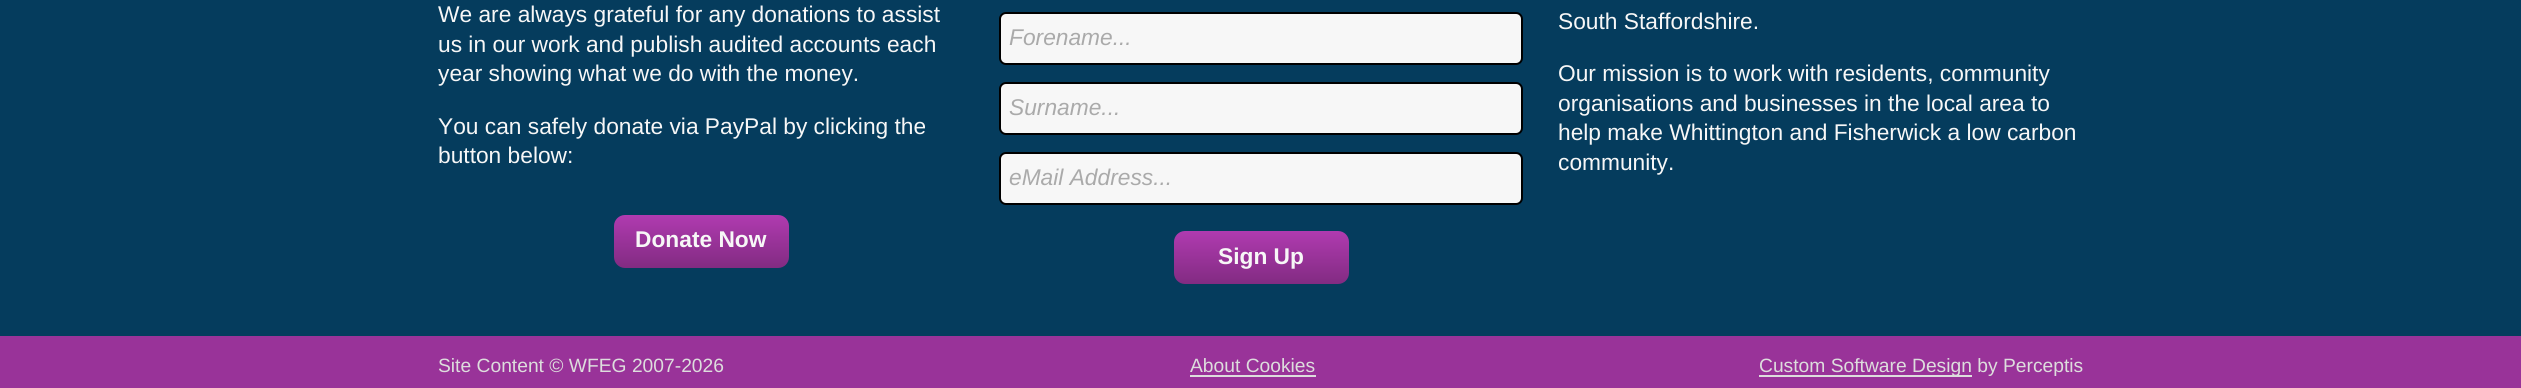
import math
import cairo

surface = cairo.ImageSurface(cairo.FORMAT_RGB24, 2521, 388)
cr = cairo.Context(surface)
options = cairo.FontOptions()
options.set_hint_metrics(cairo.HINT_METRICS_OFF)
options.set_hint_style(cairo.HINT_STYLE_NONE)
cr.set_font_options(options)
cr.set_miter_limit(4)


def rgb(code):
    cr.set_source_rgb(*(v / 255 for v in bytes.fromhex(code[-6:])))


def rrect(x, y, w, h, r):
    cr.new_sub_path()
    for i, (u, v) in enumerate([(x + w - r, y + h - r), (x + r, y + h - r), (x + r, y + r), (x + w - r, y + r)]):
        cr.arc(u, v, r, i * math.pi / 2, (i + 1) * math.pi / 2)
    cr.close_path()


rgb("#053c5d")
cr.paint()
gradient = cairo.LinearGradient(702, 215, 702, 268)
gradient.add_color_stop_rgba(0, 0.69, 0.231, 0.69, 1)
gradient.add_color_stop_rgba(1, 0.51, 0.169, 0.51, 1)
cr.set_source(gradient)
rrect(614, 215, 175, 53, 11)
cr.fill()
rgb("#f7f7f7")
rrect(1000, 13, 522, 51, 6)
cr.fill_preserve()
rgb("#000000")
cr.stroke()
rgb("#f7f7f7")
rrect(1000, 83, 522, 51, 6)
cr.fill_preserve()
rgb("#000000")
cr.stroke()
rgb("#f7f7f7")
rrect(1000, 153, 522, 51, 6)
cr.fill_preserve()
rgb("#000000")
cr.stroke()
gradient = cairo.LinearGradient(1262, 231, 1262, 284)
gradient.add_color_stop_rgba(0, 0.69, 0.231, 0.69, 1)
gradient.add_color_stop_rgba(1, 0.51, 0.169, 0.51, 1)
cr.set_source(gradient)
rrect(1174, 231, 175, 53, 11)
cr.fill()
for x, y, w, h, color in [
    (0, 336, 2521, 52, "#993399"),
    (1190, 375, 126, 2, "#dddddd"),
    (1759, 375, 213, 2, "#dddddd"),
]:
    rgb(color)
    cr.rectangle(x, y, w, h)
    cr.fill()
cr.select_font_face("Liberation Sans")
cr.set_font_size(22.75)
rgb("#f7f7f7")
for x, y, s in [
    (438, 22, "We are always grateful for any donations to assist"),
    (438, 52, "us in our work and publish audited accounts each"),
    (438, 81, "year showing what we do with the money."),
    (438, 134, "You can safely donate via PayPal by clicking the"),
    (438, 163, "button below:"),
]:
    cr.move_to(x, y)
    cr.show_text(s)
cr.select_font_face("Liberation Sans", cairo.FONT_SLANT_NORMAL, cairo.FONT_WEIGHT_BOLD)
cr.move_to(635, 247)
cr.show_text("Donate Now")
cr.select_font_face("Liberation Sans", cairo.FONT_SLANT_ITALIC)
rgb("#aaaaaa")
for x, y, s in [
    (1009, 45, "Forename..."),
    (1009, 115, "Surname..."),
    (1009, 185, "eMail Address..."),
]:
    cr.move_to(x, y)
    cr.show_text(s)
cr.select_font_face("Liberation Sans", cairo.FONT_SLANT_NORMAL, cairo.FONT_WEIGHT_BOLD)
rgb("#f7f7f7")
cr.move_to(1218, 264)
cr.show_text("Sign Up")
cr.select_font_face("Liberation Sans")
for x, y, s in [
    (1558, 29, "South Staffordshire."),
    (1558, 81, "Our mission is to work with residents, community"),
    (1558, 111, "organisations and businesses in the local area to"),
    (1558, 140, "help make Whittington and Fisherwick a low carbon"),
    (1558, 170, "community."),
]:
    cr.move_to(x, y)
    cr.show_text(s)
cr.set_font_size(19.25)
rgb("#dddddd")
for x, y, s in [
    (438, 372, "Site Content © WFEG 2007-2026"),
    (1190, 372, "About Cookies"),
    (1759, 372, "Custom Software Design by Perceptis"),
]:
    cr.move_to(x, y)
    cr.show_text(s)
surface.write_to_png("page.png")
